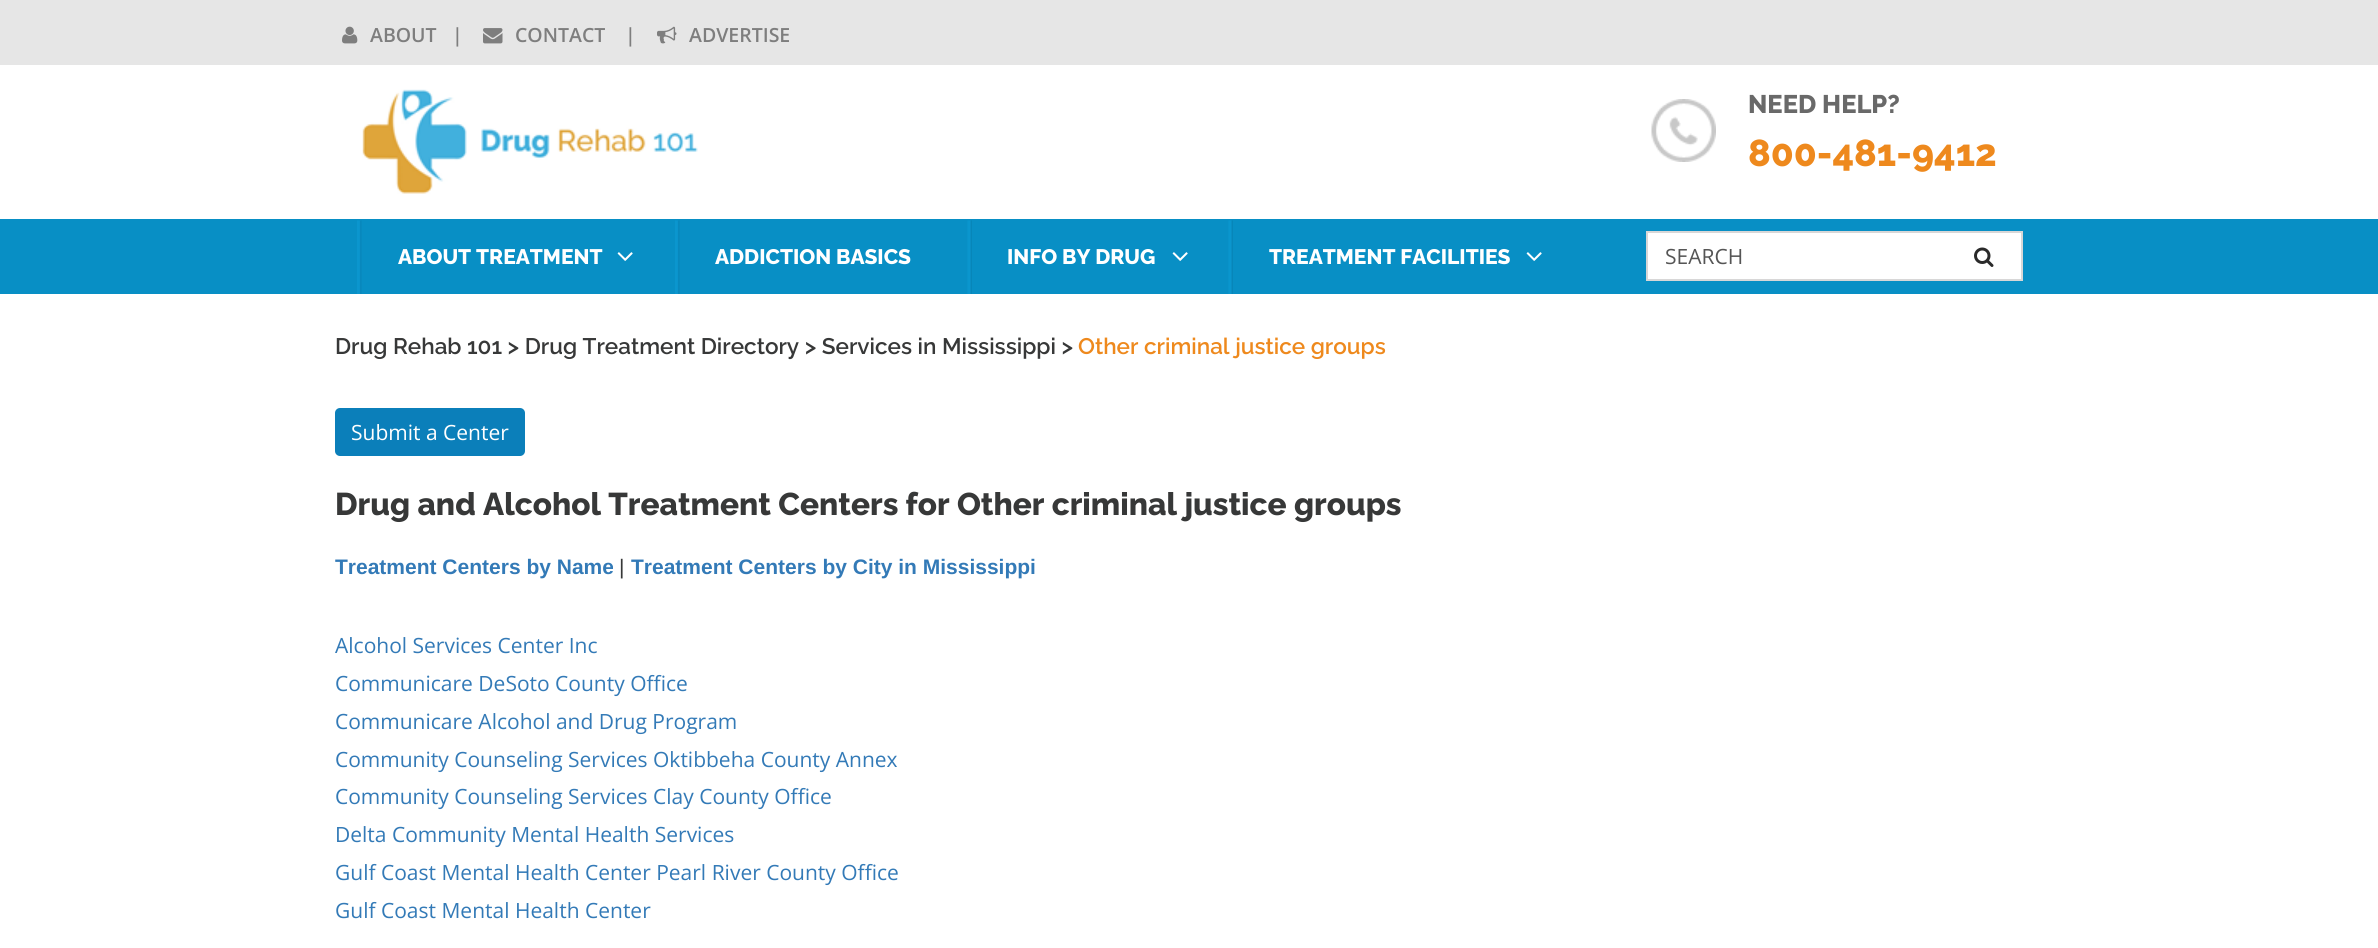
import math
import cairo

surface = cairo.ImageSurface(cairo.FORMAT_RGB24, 2378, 948)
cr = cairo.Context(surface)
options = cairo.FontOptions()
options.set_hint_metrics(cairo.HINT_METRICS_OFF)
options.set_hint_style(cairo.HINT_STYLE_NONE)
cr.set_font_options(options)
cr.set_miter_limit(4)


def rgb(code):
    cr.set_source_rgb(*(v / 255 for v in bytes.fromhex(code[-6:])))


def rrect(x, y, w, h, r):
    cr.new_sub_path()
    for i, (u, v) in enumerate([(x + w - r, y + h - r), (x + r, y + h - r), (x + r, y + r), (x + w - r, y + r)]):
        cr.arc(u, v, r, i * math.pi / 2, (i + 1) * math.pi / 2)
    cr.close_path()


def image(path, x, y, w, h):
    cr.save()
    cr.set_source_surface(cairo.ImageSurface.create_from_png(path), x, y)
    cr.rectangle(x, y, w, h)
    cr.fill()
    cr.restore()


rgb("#ffffff")
cr.paint()
rgb("#e6e6e6")
cr.rectangle(0, 0, 2378, 65)
cr.fill()
image("img/1.png", 342, 26, 16, 18)
image("img/2.png", 483, 28, 20, 16)
image("img/3.png", 657, 26, 20, 18)
image("img/4.png", 362, 89, 336, 105)
image("img/5.png", 1651, 99, 65, 63)
rgb("#088fc5")
cr.rectangle(0, 219, 2378, 75)
cr.fill()
image("img/6.png", 357, 220, 5, 74)
image("img/7.png", 617, 252, 16, 9)
image("img/8.png", 675, 220, 5, 74)
image("img/9.png", 967, 220, 5, 74)
image("img/7.png", 1172, 252, 16, 9)
image("img/9.png", 1228, 220, 5, 74)
image("img/7.png", 1526, 252, 16, 9)
for x, y, w, h, color in [
    (1648, 233, 373, 46, "#ffffff"),
    (1646, 231, 376, 2, "#d8d7d7"),
    (2021, 231, 2, 50, "#d8d7d7"),
    (1646, 279, 376, 2, "#d8d7d7"),
]:
    rgb(color)
    cr.rectangle(x, y, w, h)
    cr.fill()
image("img/10.png", 1974, 247, 20, 20)
cr.rectangle(1646, 231, 2, 50)
cr.fill()
rgb("#0b7fba")
rrect(335, 408, 190, 48, 5)
cr.fill()
cr.select_font_face("Open Sans SemiBold")
cr.set_font_size(19.5)
rgb("#7e7e7e")
for x, y, s in [
    (370, 42, "ABOUT"),
    (452, 42, "|"),
    (515, 42, "CONTACT"),
    (625, 42, "|"),
    (689, 42, "ADVERTISE"),
]:
    cr.move_to(x, y)
    cr.show_text(s)
cr.select_font_face("Raleway ExtraBold")
cr.set_font_size(25.5)
rgb("#696969")
cr.move_to(1748, 113)
cr.show_text("NEED HELP?")
cr.set_font_size(37.5)
rgb("#ee891d")
cr.move_to(1748, 166)
cr.show_text("800-481-9412")
cr.set_font_size(21)
rgb("#ffffff")
for x, y, s in [
    (398, 264, "ABOUT TREATMENT"),
    (715, 264, "ADDICTION BASICS"),
    (1007, 264, "INFO BY DRUG"),
    (1269, 264, "TREATMENT FACILITIES"),
]:
    cr.move_to(x, y)
    cr.show_text(s)
cr.select_font_face("Open Sans")
rgb("#555555")
cr.move_to(1665, 264)
cr.show_text("SEARCH")
cr.select_font_face("Raleway SemiBold")
cr.set_font_size(22.5)
rgb("#373838")
cr.move_to(335, 354)
cr.show_text("Drug Rehab 101 > Drug Treatment Directory > Services in Mississippi >")
rgb("#ee891d")
cr.move_to(1078, 354)
cr.show_text("Other criminal justice groups")
cr.select_font_face("Open Sans")
cr.set_font_size(21)
rgb("#ffffff")
cr.move_to(351, 440)
cr.show_text("Submit a Center")
cr.select_font_face("Raleway ExtraBold")
cr.set_font_size(31.5)
rgb("#373838")
cr.move_to(335, 515)
cr.show_text("Drug and Alcohol Treatment Centers for Other criminal justice groups")
cr.select_font_face("Liberation Sans", cairo.FONT_SLANT_NORMAL, cairo.FONT_WEIGHT_BOLD)
cr.set_font_size(21)
rgb("#337ab7")
cr.move_to(335, 574)
cr.show_text("Treatment Centers by Name")
cr.select_font_face("Liberation Sans")
rgb("#373838")
cr.move_to(619, 574)
cr.show_text("|")
cr.select_font_face("Liberation Sans", cairo.FONT_SLANT_NORMAL, cairo.FONT_WEIGHT_BOLD)
rgb("#337ab7")
cr.move_to(631, 574)
cr.show_text("Treatment Centers by City in Mississippi")
cr.select_font_face("Open Sans")
for x, y, s in [
    (335, 653, "Alcohol Services Center Inc"),
    (335, 691, "Communicare DeSoto County Office"),
    (335, 729, "Communicare Alcohol and Drug Program"),
    (335, 767, "Community Counseling Services Oktibbeha County Annex"),
    (335, 804, "Community Counseling Services Clay County Office"),
    (335, 842, "Delta Community Mental Health Services"),
    (335, 880, "Gulf Coast Mental Health Center Pearl River County Office"),
    (335, 918, "Gulf Coast Mental Health Center"),
]:
    cr.move_to(x, y)
    cr.show_text(s)
surface.write_to_png("page.png")
